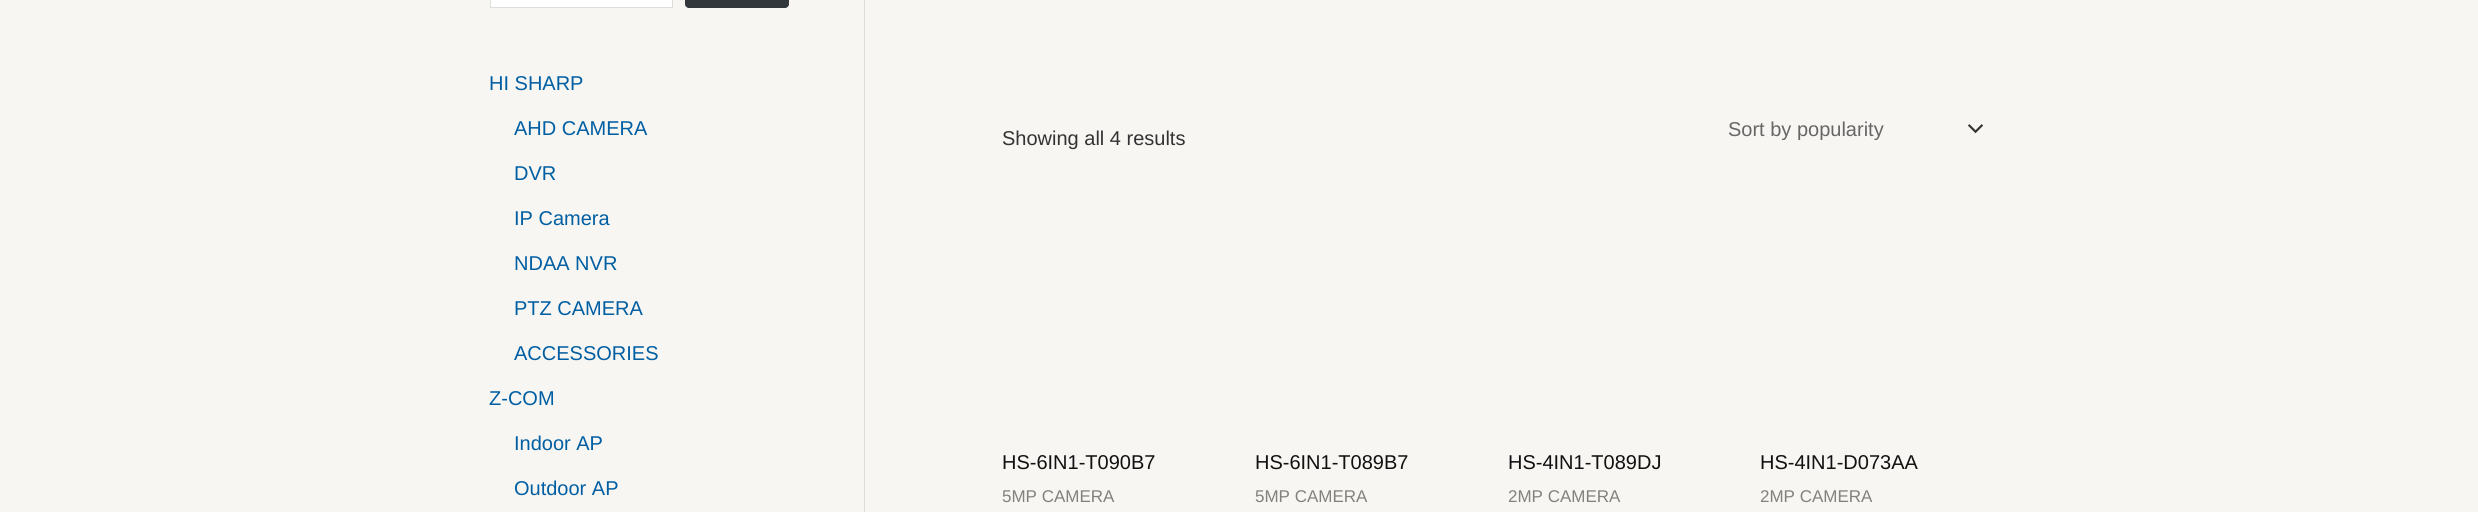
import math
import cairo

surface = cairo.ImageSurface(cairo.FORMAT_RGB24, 2478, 512)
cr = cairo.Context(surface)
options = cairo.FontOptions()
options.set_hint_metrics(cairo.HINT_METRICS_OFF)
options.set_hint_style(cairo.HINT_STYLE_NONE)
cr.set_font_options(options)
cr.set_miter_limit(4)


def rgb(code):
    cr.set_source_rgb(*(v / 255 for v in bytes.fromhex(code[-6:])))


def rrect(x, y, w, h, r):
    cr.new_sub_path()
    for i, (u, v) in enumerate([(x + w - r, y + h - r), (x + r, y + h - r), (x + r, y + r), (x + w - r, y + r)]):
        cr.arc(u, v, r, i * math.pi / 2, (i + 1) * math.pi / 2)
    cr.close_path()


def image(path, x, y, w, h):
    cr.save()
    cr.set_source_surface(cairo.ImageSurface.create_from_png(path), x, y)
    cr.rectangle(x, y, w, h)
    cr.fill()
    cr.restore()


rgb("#f8f6f3")
cr.paint()
rgb("#dddddd")
cr.rectangle(864, 0, 1, 512)
cr.fill()
rgb("#ffffff")
cr.rectangle(490.5, -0.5, 182, 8)
cr.fill_preserve()
rgb("#dddddd")
cr.set_line_width(1)
cr.stroke()
rgb("#32373c")
rrect(685, -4, 104, 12, 4)
cr.fill()
image("img/1.png", 1968, 124, 15, 10)
cr.select_font_face("Liberation Sans")
cr.set_font_size(20)
rgb("#005ea2")
for x, y, s in [
    (489, 90, "HI SHARP"),
    (514, 135, "AHD CAMERA"),
    (514, 180, "DVR"),
    (514, 225, "IP Camera"),
    (514, 270, "NDAA NVR"),
    (514, 315, "PTZ CAMERA"),
    (514, 360, "ACCESSORIES"),
    (489, 405, "Z-COM"),
    (514, 450, "Indoor AP"),
    (514, 495, "Outdoor AP"),
]:
    cr.move_to(x, y)
    cr.show_text(s)
rgb("#333333")
cr.move_to(1002, 145)
cr.show_text("Showing all 4 results")
cr.save()
cr.rectangle(1729, 119, 220, 21)
cr.clip()
rgb("#666666")
cr.move_to(1728, 136)
cr.show_text("Sort by popularity")
cr.restore()
rgb("#111111")
cr.move_to(1002, 469)
cr.show_text("HS-6IN1-T090B7")
cr.set_font_size(17)
rgb("#828180")
cr.move_to(1002, 502)
cr.show_text("5MP CAMERA")
cr.set_font_size(20)
rgb("#111111")
cr.move_to(1255, 469)
cr.show_text("HS-6IN1-T089B7")
cr.set_font_size(17)
rgb("#828180")
cr.move_to(1255, 502)
cr.show_text("5MP CAMERA")
cr.set_font_size(20)
rgb("#111111")
cr.move_to(1508, 469)
cr.show_text("HS-4IN1-T089DJ")
cr.set_font_size(17)
rgb("#828180")
cr.move_to(1508, 502)
cr.show_text("2MP CAMERA")
cr.set_font_size(20)
rgb("#111111")
cr.move_to(1760, 469)
cr.show_text("HS-4IN1-D073AA")
cr.set_font_size(17)
rgb("#828180")
cr.move_to(1760, 502)
cr.show_text("2MP CAMERA")
surface.write_to_png("page.png")
